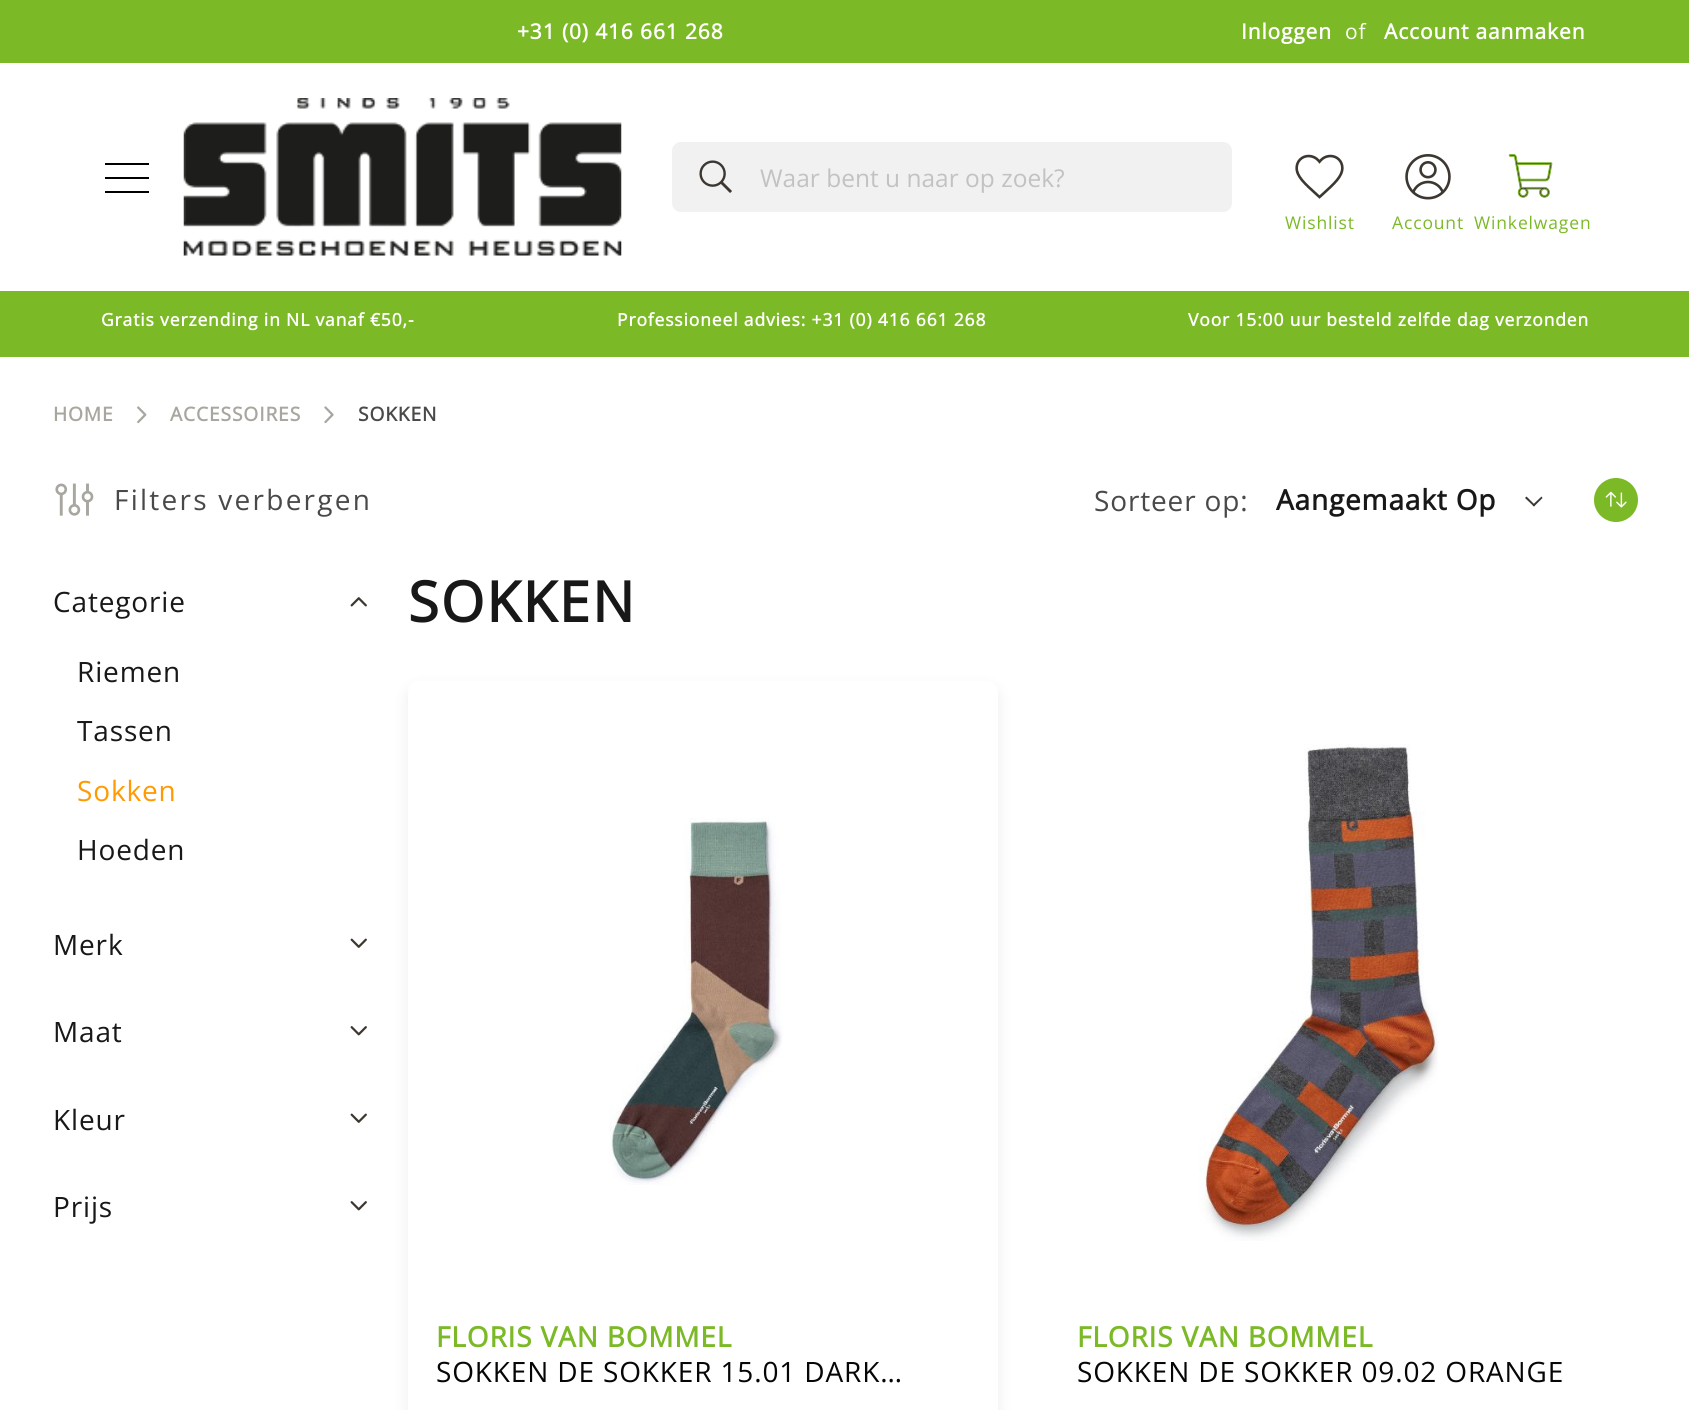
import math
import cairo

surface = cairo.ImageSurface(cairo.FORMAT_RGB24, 1689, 1410)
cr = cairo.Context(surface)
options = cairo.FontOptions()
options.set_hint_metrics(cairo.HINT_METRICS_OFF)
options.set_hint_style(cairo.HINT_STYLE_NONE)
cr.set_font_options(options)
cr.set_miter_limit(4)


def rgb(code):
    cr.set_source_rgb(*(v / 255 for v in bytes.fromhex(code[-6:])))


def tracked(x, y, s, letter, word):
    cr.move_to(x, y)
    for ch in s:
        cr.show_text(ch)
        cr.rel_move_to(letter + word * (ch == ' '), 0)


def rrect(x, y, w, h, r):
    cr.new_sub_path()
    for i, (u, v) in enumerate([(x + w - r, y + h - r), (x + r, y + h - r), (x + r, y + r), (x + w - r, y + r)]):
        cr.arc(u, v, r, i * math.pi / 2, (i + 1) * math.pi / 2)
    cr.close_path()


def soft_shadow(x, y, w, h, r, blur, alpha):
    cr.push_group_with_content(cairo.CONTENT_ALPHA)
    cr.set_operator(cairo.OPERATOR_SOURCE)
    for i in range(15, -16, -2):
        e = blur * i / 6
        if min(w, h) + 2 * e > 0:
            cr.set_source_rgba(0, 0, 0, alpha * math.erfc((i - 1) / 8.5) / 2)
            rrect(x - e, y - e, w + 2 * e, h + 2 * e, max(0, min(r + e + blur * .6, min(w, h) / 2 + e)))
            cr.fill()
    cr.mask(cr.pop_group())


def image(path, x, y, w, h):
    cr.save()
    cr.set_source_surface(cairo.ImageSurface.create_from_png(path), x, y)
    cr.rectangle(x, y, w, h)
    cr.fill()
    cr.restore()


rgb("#ffffff")
cr.paint()
for x, y, w, h, color in [
    (0, 0, 1689, 63, "#7cb927"),
    (105, 163, 44, 2, "#000000"),
    (105, 191, 44, 2, "#000000"),
    (105, 177, 44, 2, "#000000"),
]:
    rgb(color)
    cr.rectangle(x, y, w, h)
    cr.fill()
image("img/1.png", 183, 98, 439, 158)
rgb("#f1f1f1")
rrect(672, 142, 560, 70, 9)
cr.fill()
image("img/2.png", 699, 160, 33, 33)
image("img/3.png", 1295, 154, 49, 45)
image("img/4.png", 1405, 154, 46, 46)
image("img/5.png", 1508, 154, 45, 44)
rgb("#7cb927")
cr.rectangle(0, 291, 1689, 66)
cr.fill()
image("img/6.png", 137, 406, 10, 18)
image("img/7.png", 324, 406, 10, 18)
image("img/8.png", 55, 483, 39, 33)
image("img/9.png", 350, 597, 17, 10)
image("img/10.png", 350, 938, 17, 10)
image("img/11.png", 350, 1026, 17, 10)
image("img/10.png", 350, 1113, 17, 10)
image("img/11.png", 350, 1201, 17, 10)
rgb("#3d3731")
cr.new_path()
cr.move_to(1541.5, 496.5)
cr.line_to(1542.5, 498)
cr.line_to(1534, 506.5)
cr.line_to(1532.5, 505)
cr.close_path()
cr.fill()
cr.new_path()
cr.move_to(1526.5, 496.5)
cr.line_to(1535, 505)
cr.line_to(1534, 506.5)
cr.line_to(1525, 498)
cr.close_path()
cr.fill()
rgb("#7cb927")
cr.arc(1616, 500, 22, 0, 2 * math.pi)
cr.fill()
image("img/12.png", 1605, 491, 22, 17)
rgb("#393838")
soft_shadow(408, 688, 590, 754, 11, 7, 0.1)
rgb("#ffffff")
rrect(408, 681, 590, 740, 11)
cr.fill()
image("img/13.png", 609, 818, 174, 367)
image("img/14.png", 1199, 744, 239, 497)
cr.select_font_face("Open Sans", cairo.FONT_SLANT_NORMAL, cairo.FONT_WEIGHT_BOLD)
cr.set_font_size(21)
tracked(517, 39, "+31 (0) 416 661 268", 0.85, 0)
tracked(1241, 39, "Inloggen", 0.85, 0)
cr.select_font_face("Open Sans")
tracked(1345, 39, "of", 0.85, 0)
cr.select_font_face("Open Sans", cairo.FONT_SLANT_NORMAL, cairo.FONT_WEIGHT_BOLD)
tracked(1384, 39, "Account aanmaken", 0.85, 0)
cr.select_font_face("Open Sans")
cr.set_font_size(24.5)
rgb("#c2c2c2")
cr.move_to(760, 187)
cr.show_text("Waar bent u naar op zoek?")
cr.set_font_size(17.5)
rgb("#7cb927")
for x, y, s in [
    (1285, 229, "Wishlist"),
    (1392, 229, "Account"),
    (1474, 229, "Winkelwagen"),
]:
    tracked(x, y, s, 0.85, 0)
cr.select_font_face("Open Sans", cairo.FONT_SLANT_NORMAL, cairo.FONT_WEIGHT_BOLD)
rgb("#ffffff")
for x, y, s in [
    (101, 326, "Gratis verzending in NL vanaf €50,-"),
    (617, 326, "Professioneel advies: +31 (0) 416 661 268"),
    (1188, 326, "Voor 15:00 uur besteld zelfde dag verzonden"),
]:
    tracked(x, y, s, 0.85, 0)
cr.set_font_size(19.25)
rgb("#a8a69f")
tracked(53, 421, "HOME", 0.85, 0)
tracked(170, 421, "ACCESSOIRES", 0.85, 0)
rgb("#4a4948")
tracked(358, 421, "SOKKEN", 0.85, 0)
cr.select_font_face("Open Sans")
cr.set_font_size(28)
tracked(114, 510, "Filters verbergen", 2.25, 0)
rgb("#181818")
for x, y, s in [
    (53, 612, "Categorie"),
    (77, 682, "Riemen"),
    (77, 741, "Tassen"),
]:
    tracked(x, y, s, 0.85, 0)
rgb("#ff9a02")
tracked(77, 801, "Sokken", 0.85, 0)
rgb("#181818")
for x, y, s in [
    (77, 860, "Hoeden"),
    (53, 955, "Merk"),
    (53, 1042, "Maat"),
    (53, 1130, "Kleur"),
    (53, 1217, "Prijs"),
]:
    tracked(x, y, s, 0.85, 0)
rgb("#4a4948")
tracked(1094, 511, "Sorteer op:", 0.85, 0)
cr.select_font_face("Open Sans", cairo.FONT_SLANT_NORMAL, cairo.FONT_WEIGHT_BOLD)
rgb("#181818")
tracked(1276, 510, "Aangemaakt Op", 0.85, 0)
rgb("#7cb927")
tracked(436, 1347, "FLORIS VAN BOMMEL", 0.85, 0)
cr.select_font_face("Open Sans")
rgb("#070605")
tracked(436, 1382, "SOKKEN DE SOKKER 15.01 DARK…", 0.85, 0)
cr.select_font_face("Open Sans", cairo.FONT_SLANT_NORMAL, cairo.FONT_WEIGHT_BOLD)
rgb("#7cb927")
tracked(1077, 1347, "FLORIS VAN BOMMEL", 0.85, 0)
cr.select_font_face("Open Sans")
rgb("#070605")
tracked(1077, 1382, "SOKKEN DE SOKKER 09.02 ORANGE", 0.85, 0)
cr.select_font_face("Open Sans", cairo.FONT_SLANT_NORMAL, cairo.FONT_WEIGHT_BOLD)
cr.set_font_size(56)
rgb("#181818")
tracked(408, 622, "SOKKEN", 2, 0)
surface.write_to_png("page.png")
